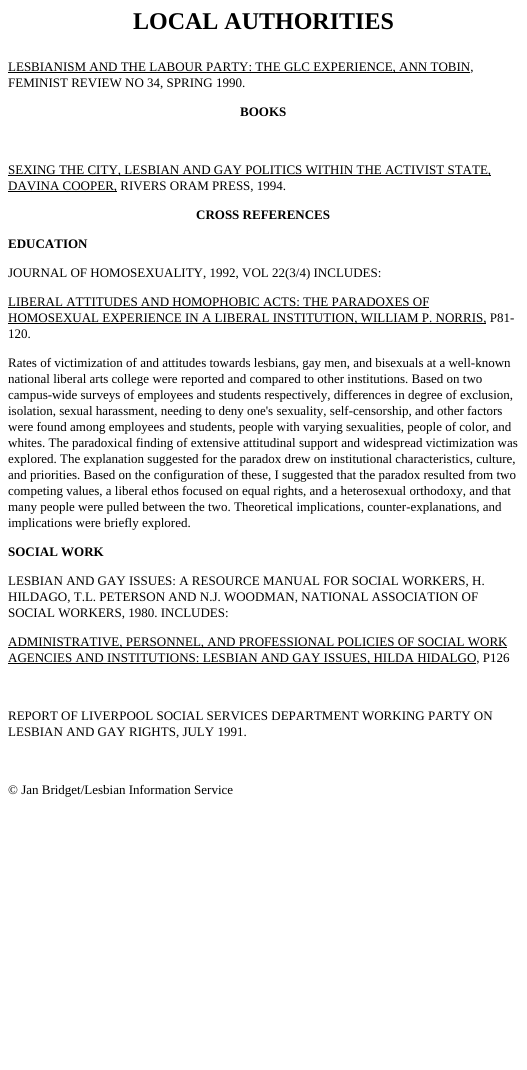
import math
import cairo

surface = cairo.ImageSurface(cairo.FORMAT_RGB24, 527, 1070)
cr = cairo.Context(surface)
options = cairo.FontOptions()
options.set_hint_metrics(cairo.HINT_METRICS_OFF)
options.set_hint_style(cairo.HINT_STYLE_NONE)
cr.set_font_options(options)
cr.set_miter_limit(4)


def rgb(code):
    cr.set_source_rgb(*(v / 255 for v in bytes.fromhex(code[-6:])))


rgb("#ffffff")
cr.paint()
for x, y, w, h, color in [
    (8, 72, 462, 1, "#000000"),
    (8, 175, 483, 1, "#000000"),
    (8, 191, 109, 1, "#000000"),
    (8, 307, 421, 1, "#000000"),
    (8, 323, 478, 1, "#000000"),
    (8, 647, 499, 1, "#000000"),
    (8, 663, 468, 1, "#000000"),
]:
    rgb(color)
    cr.rectangle(x, y, w, h)
    cr.fill()
cr.select_font_face("Liberation Serif", cairo.FONT_SLANT_NORMAL, cairo.FONT_WEIGHT_BOLD)
cr.set_font_size(24)
cr.move_to(133, 29)
cr.show_text("LOCAL AUTHORITIES")
cr.select_font_face("Liberation Serif")
cr.set_font_size(13)
cr.move_to(8, 71)
cr.show_text("LESBIANISM AND THE LABOUR PARTY: THE GLC EXPERIENCE, ANN TOBIN,")
cr.move_to(8, 87)
cr.show_text("FEMINIST REVIEW NO 34, SPRING 1990.")
cr.select_font_face("Liberation Serif", cairo.FONT_SLANT_NORMAL, cairo.FONT_WEIGHT_BOLD)
cr.move_to(240, 116)
cr.show_text("BOOKS")
cr.select_font_face("Liberation Serif")
cr.move_to(8, 174)
cr.show_text("SEXING THE CITY, LESBIAN AND GAY POLITICS WITHIN THE ACTIVIST STATE,")
cr.move_to(8, 190)
cr.show_text("DAVINA COOPER, RIVERS ORAM PRESS, 1994.")
cr.select_font_face("Liberation Serif", cairo.FONT_SLANT_NORMAL, cairo.FONT_WEIGHT_BOLD)
cr.move_to(196, 219)
cr.show_text("CROSS REFERENCES")
cr.move_to(8, 248)
cr.show_text("EDUCATION")
cr.select_font_face("Liberation Serif")
for x, y, s in [
    (8, 277, "JOURNAL OF HOMOSEXUALITY, 1992, VOL 22(3/4) INCLUDES:"),
    (8, 306, "LIBERAL ATTITUDES AND HOMOPHOBIC ACTS: THE PARADOXES OF"),
    (8, 322, "HOMOSEXUAL EXPERIENCE IN A LIBERAL INSTITUTION, WILLIAM P. NORRIS, P81-"),
    (8, 338, "120."),
    (8, 367, "Rates of victimization of and attitudes towards lesbians, gay men, and bisexuals at a well-known"),
    (8, 383, "national liberal arts college were reported and compared to other institutions. Based on two"),
    (8, 399, "campus-wide surveys of employees and students respectively, differences in degree of exclusion,"),
    (8, 415, "isolation, sexual harassment, needing to deny one's sexuality, self-censorship, and other factors"),
    (8, 431, "were found among employees and students, people with varying sexualities, people of color, and"),
    (8, 447, "whites. The paradoxical finding of extensive attitudinal support and widespread victimization was"),
    (8, 463, "explored. The explanation suggested for the paradox drew on institutional characteristics, culture,"),
    (8, 479, "and priorities. Based on the configuration of these, I suggested that the paradox resulted from two"),
    (8, 495, "competing values, a liberal ethos focused on equal rights, and a heterosexual orthodoxy, and that"),
    (8, 511, "many people were pulled between the two. Theoretical implications, counter-explanations, and"),
    (8, 527, "implications were briefly explored."),
]:
    cr.move_to(x, y)
    cr.show_text(s)
cr.select_font_face("Liberation Serif", cairo.FONT_SLANT_NORMAL, cairo.FONT_WEIGHT_BOLD)
cr.move_to(8, 556)
cr.show_text("SOCIAL WORK")
cr.select_font_face("Liberation Serif")
for x, y, s in [
    (8, 585, "LESBIAN AND GAY ISSUES: A RESOURCE MANUAL FOR SOCIAL WORKERS, H."),
    (8, 601, "HILDAGO, T.L. PETERSON AND N.J. WOODMAN, NATIONAL ASSOCIATION OF"),
    (8, 617, "SOCIAL WORKERS, 1980. INCLUDES:"),
    (8, 646, "ADMINISTRATIVE, PERSONNEL, AND PROFESSIONAL POLICIES OF SOCIAL WORK"),
    (8, 662, "AGENCIES AND INSTITUTIONS: LESBIAN AND GAY ISSUES, HILDA HIDALGO, P126"),
    (8, 720, "REPORT OF LIVERPOOL SOCIAL SERVICES DEPARTMENT WORKING PARTY ON"),
    (8, 736, "LESBIAN AND GAY RIGHTS, JULY 1991."),
    (8, 794, "© Jan Bridget/Lesbian Information Service"),
]:
    cr.move_to(x, y)
    cr.show_text(s)
surface.write_to_png("page.png")
